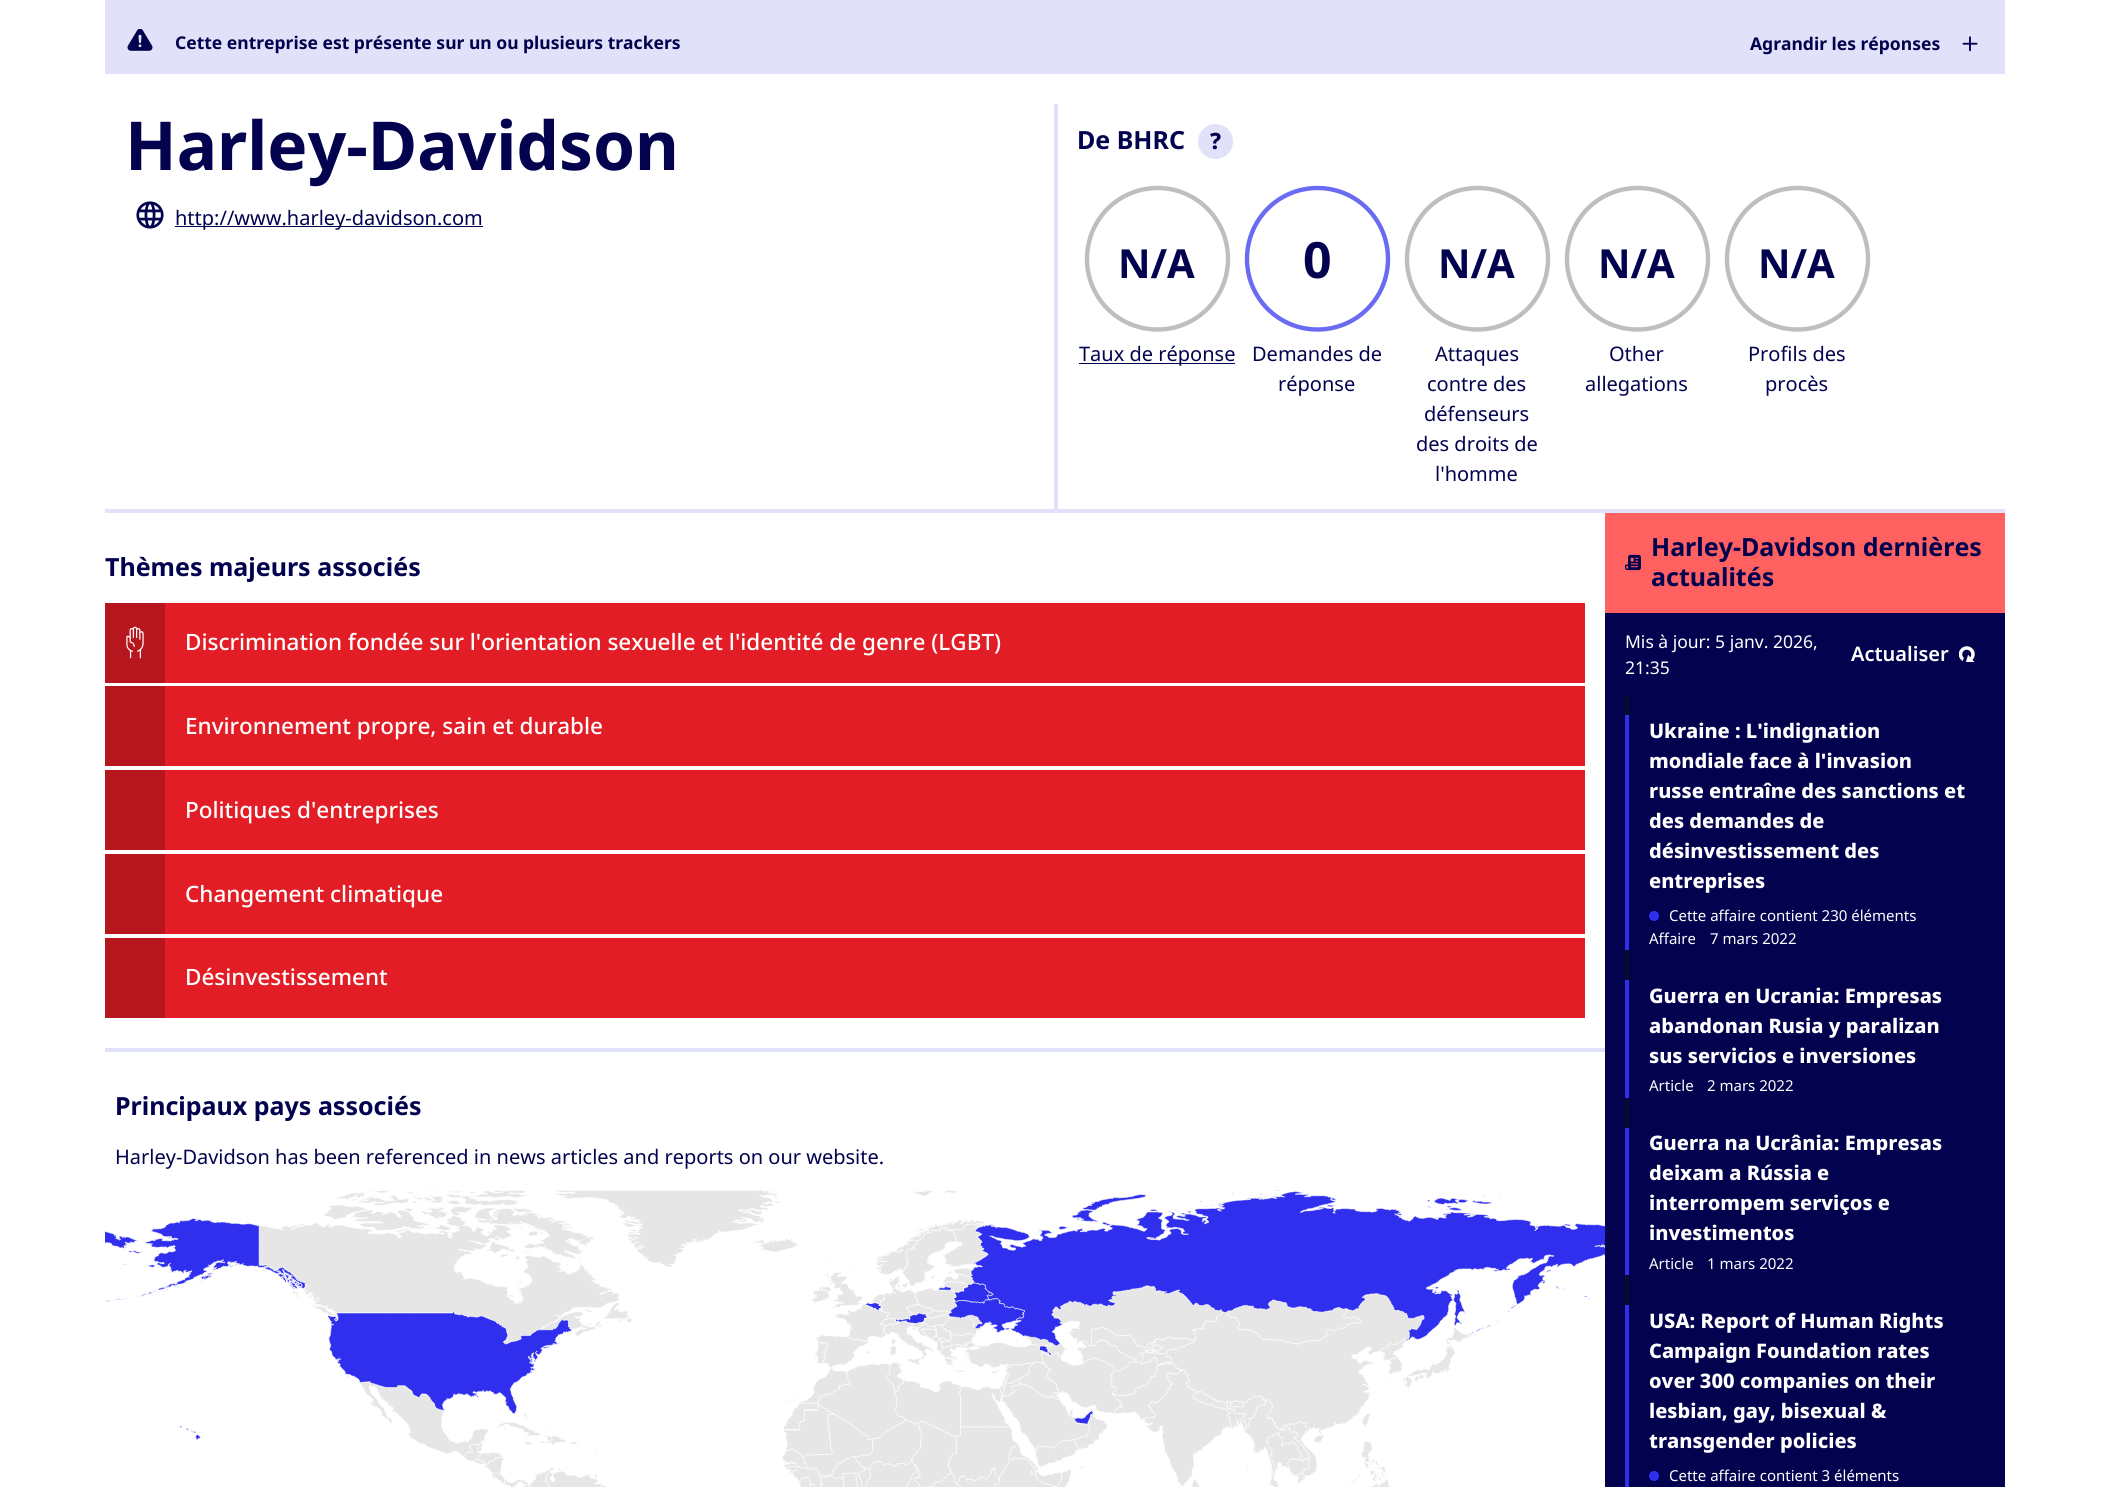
import math
import cairo

surface = cairo.ImageSurface(cairo.FORMAT_RGB24, 2110, 1487)
cr = cairo.Context(surface)
options = cairo.FontOptions()
options.set_hint_metrics(cairo.HINT_METRICS_OFF)
options.set_hint_style(cairo.HINT_STYLE_NONE)
cr.set_font_options(options)
cr.set_miter_limit(4)


def rgb(code):
    cr.set_source_rgb(*(v / 255 for v in bytes.fromhex(code[-6:])))


def image(path, x, y, w, h):
    cr.save()
    cr.set_source_surface(cairo.ImageSurface.create_from_png(path), x, y)
    cr.rectangle(x, y, w, h)
    cr.fill()
    cr.restore()


rgb("#ffffff")
cr.paint()
rgb("#e1e1f9")
cr.rectangle(105, 0, 1900, 74)
cr.fill()
image("img/1.png", 127, 29, 26, 22)
image("img/2.png", 1962, 36, 16, 16)
cr.rectangle(105, 104, 1900, 409)
cr.fill()
rgb("#ffffff")
cr.rectangle(105, 104, 949, 405)
cr.fill()
image("img/3.png", 136, 201, 28, 28)
rgb("#02024f")
cr.rectangle(175, 226, 308, 1)
cr.fill()
rgb("#ffffff")
cr.rectangle(1058, 104, 947, 405)
cr.fill()
rgb("#e1e1f9")
cr.arc(1215.5, 141.5, 17.5, 0, 2 * math.pi)
cr.fill()
cr.new_path()
cr.move_to(1157.5, 188)
cr.curve_to(1196.5, 188, 1228, 219.5, 1228, 259)
cr.curve_to(1228, 298, 1196.5, 329.5, 1157.5, 329.5)
cr.curve_to(1118.5, 329.5, 1087, 298, 1087, 259)
cr.curve_to(1087, 219.5, 1118.5, 188, 1157.5, 188)
rgb("#bcbec0")
cr.set_line_width(4.4)
cr.set_line_cap(cairo.LINE_CAP_ROUND)
cr.stroke()
rgb("#02024f")
cr.rectangle(1079, 363, 156, 1)
cr.fill()
cr.new_path()
cr.move_to(1317.5, 188)
cr.curve_to(1356.5, 188, 1388, 219.5, 1388, 259)
cr.curve_to(1388, 298, 1356.5, 329.5, 1317.5, 329.5)
cr.curve_to(1278.5, 329.5, 1247, 298, 1247, 259)
cr.curve_to(1247, 219.5, 1278.5, 188, 1317.5, 188)
rgb("#6a6af2")
cr.stroke()
cr.new_path()
cr.move_to(1477.5, 188)
cr.curve_to(1516.5, 188, 1548, 219.5, 1548, 259)
cr.curve_to(1548, 298, 1516.5, 329.5, 1477.5, 329.5)
cr.curve_to(1438.5, 329.5, 1407, 298, 1407, 259)
cr.curve_to(1407, 219.5, 1438.5, 188, 1477.5, 188)
rgb("#bcbec0")
cr.stroke()
cr.new_path()
cr.move_to(1637.5, 188)
cr.curve_to(1676.5, 188, 1708, 219.5, 1708, 259)
cr.curve_to(1708, 298, 1676.5, 329.5, 1637.5, 329.5)
cr.curve_to(1598.5, 329.5, 1567, 298, 1567, 259)
cr.curve_to(1567, 219.5, 1598.5, 188, 1637.5, 188)
cr.stroke()
cr.new_path()
cr.move_to(1797.5, 188)
cr.curve_to(1836.5, 188, 1868, 219.5, 1868, 259)
cr.curve_to(1868, 298, 1836.5, 329.5, 1797.5, 329.5)
cr.curve_to(1758.5, 329.5, 1727, 298, 1727, 259)
cr.curve_to(1727, 219.5, 1758.5, 188, 1797.5, 188)
cr.stroke()
for x, y, w, h, color in [
    (105, 1048, 1500, 4, "#e1e1f9"),
    (165, 603, 1420, 80, "#e31d25"),
    (105, 603, 60, 80, "#b6171e"),
]:
    rgb(color)
    cr.rectangle(x, y, w, h)
    cr.fill()
image("img/4.png", 126, 626, 18, 33)
for x, y, w, h, color in [
    (165, 686, 1420, 80, "#e31d25"),
    (105, 686, 60, 80, "#b6171e"),
    (165, 770, 1420, 80, "#e31d25"),
    (105, 770, 60, 80, "#b6171e"),
    (165, 854, 1420, 80, "#e31d25"),
    (105, 854, 60, 80, "#b6171e"),
    (165, 938, 1420, 80, "#e31d25"),
    (105, 938, 60, 80, "#b6171e"),
]:
    rgb(color)
    cr.rectangle(x, y, w, h)
    cr.fill()
image("img/5.png", 105, 1190, 1500, 297)
rgb("#02024f")
cr.rectangle(1605, 613, 400, 874)
cr.fill()
rgb("#ff6060")
cr.rectangle(1605, 513, 400, 100)
cr.fill()
image("img/6.png", 1625, 554, 16, 17)
image("img/7.png", 1959, 646, 16, 16)
rgb("#080d27")
cr.rectangle(1625, 695, 4, 610)
cr.fill()
rgb("#2f2fed")
cr.rectangle(1625, 715, 4, 235)
cr.fill()
cr.arc(1654, 916, 5, 0, 2 * math.pi)
cr.fill()
for x, y, w, h, color in [
    (1625, 980, 4, 118, "#2f2fed"),
    (1625, 1128, 4, 147, "#2f2fed"),
    (1625, 1305, 4, 182, "#2f2fed"),
]:
    rgb(color)
    cr.rectangle(x, y, w, h)
    cr.fill()
cr.arc(1654, 1476, 5, 0, 2 * math.pi)
cr.fill()
cr.select_font_face("Noto Sans", cairo.FONT_SLANT_NORMAL, cairo.FONT_WEIGHT_BOLD)
cr.set_font_size(17.5)
rgb("#02024f")
cr.move_to(175, 49)
cr.show_text("Cette entreprise est présente sur un ou plusieurs trackers")
cr.move_to(1750, 50)
cr.show_text("Agrandir les réponses")
cr.set_font_size(67.5)
cr.move_to(125, 170)
cr.show_text("Harley-Davidson")
cr.select_font_face("Noto Sans")
cr.set_font_size(20)
cr.move_to(175, 225)
cr.show_text("http://www.harley-davidson.com")
cr.select_font_face("Noto Sans", cairo.FONT_SLANT_NORMAL, cairo.FONT_WEIGHT_BOLD)
cr.set_font_size(25)
cr.move_to(1077, 149)
cr.show_text("De BHRC")
cr.select_font_face("Noto Sans ExtraBold")
cr.set_font_size(22.5)
cr.move_to(1210, 149)
cr.show_text("?")
cr.select_font_face("Noto Sans", cairo.FONT_SLANT_NORMAL, cairo.FONT_WEIGHT_BOLD)
cr.set_font_size(40)
cr.move_to(1118, 278)
cr.show_text("N/A")
cr.select_font_face("Noto Sans")
cr.set_font_size(20)
cr.move_to(1079, 361)
cr.show_text("Taux de réponse")
cr.select_font_face("Noto Sans", cairo.FONT_SLANT_NORMAL, cairo.FONT_WEIGHT_BOLD)
cr.set_font_size(50)
cr.move_to(1303, 278)
cr.show_text("0")
cr.select_font_face("Noto Sans")
cr.set_font_size(20)
cr.move_to(1252, 361)
cr.show_text("Demandes de")
cr.move_to(1278, 391)
cr.show_text("réponse")
cr.select_font_face("Noto Sans", cairo.FONT_SLANT_NORMAL, cairo.FONT_WEIGHT_BOLD)
cr.set_font_size(40)
cr.move_to(1438, 278)
cr.show_text("N/A")
cr.select_font_face("Noto Sans")
cr.set_font_size(20)
for x, y, s in [
    (1435, 361, "Attaques"),
    (1427, 391, "contre des"),
    (1424, 421, "défenseurs"),
    (1416, 451, "des droits de"),
    (1435, 481, "l'homme"),
]:
    cr.move_to(x, y)
    cr.show_text(s)
cr.select_font_face("Noto Sans", cairo.FONT_SLANT_NORMAL, cairo.FONT_WEIGHT_BOLD)
cr.set_font_size(40)
cr.move_to(1598, 278)
cr.show_text("N/A")
cr.select_font_face("Noto Sans")
cr.set_font_size(20)
cr.move_to(1609, 361)
cr.show_text("Other")
cr.move_to(1585, 391)
cr.show_text("allegations")
cr.select_font_face("Noto Sans", cairo.FONT_SLANT_NORMAL, cairo.FONT_WEIGHT_BOLD)
cr.set_font_size(40)
cr.move_to(1758, 278)
cr.show_text("N/A")
cr.select_font_face("Noto Sans")
cr.set_font_size(20)
cr.move_to(1748, 361)
cr.show_text("Profils des")
cr.move_to(1765, 391)
cr.show_text("procès")
cr.select_font_face("Noto Sans", cairo.FONT_SLANT_NORMAL, cairo.FONT_WEIGHT_BOLD)
cr.set_font_size(25)
cr.move_to(105, 576)
cr.show_text("Thèmes majeurs associés")
cr.select_font_face("Noto Sans Medium")
cr.set_font_size(22.5)
rgb("#ffffff")
for x, y, s in [
    (185, 650, "Discrimination fondée sur l'orientation sexuelle et l'identité de genre (LGBT)"),
    (185, 734, "Environnement propre, sain et durable"),
    (185, 818, "Politiques d'entreprises"),
    (185, 902, "Changement climatique"),
    (185, 985, "Désinvestissement"),
]:
    cr.move_to(x, y)
    cr.show_text(s)
cr.select_font_face("Noto Sans", cairo.FONT_SLANT_NORMAL, cairo.FONT_WEIGHT_BOLD)
cr.set_font_size(25)
rgb("#02024f")
cr.move_to(115, 1115)
cr.show_text("Principaux pays associés")
cr.select_font_face("Noto Sans")
cr.set_font_size(20)
cr.move_to(115, 1164)
cr.show_text("Harley-Davidson has been referenced in news articles and reports on our website.")
cr.select_font_face("Noto Sans", cairo.FONT_SLANT_NORMAL, cairo.FONT_WEIGHT_BOLD)
cr.set_font_size(25)
cr.move_to(1651, 556)
cr.show_text("Harley-Davidson dernières")
cr.move_to(1651, 586)
cr.show_text("actualités")
cr.select_font_face("Noto Sans")
cr.set_font_size(17.5)
rgb("#ffffff")
cr.move_to(1625, 648)
cr.show_text("Mis à jour: 5 janv. 2026,")
cr.move_to(1625, 674)
cr.show_text("21:35")
cr.select_font_face("Noto Sans SemiBold")
cr.set_font_size(20)
cr.move_to(1851, 661)
cr.show_text("Actualiser")
cr.select_font_face("Noto Sans ExtraBold")
for x, y, s in [
    (1649, 738, "Ukraine : L'indignation"),
    (1649, 768, "mondiale face à l'invasion"),
    (1649, 798, "russe entraîne des sanctions et"),
    (1649, 828, "des demandes de"),
    (1649, 858, "désinvestissement des"),
    (1649, 888, "entreprises"),
]:
    cr.move_to(x, y)
    cr.show_text(s)
cr.select_font_face("Noto Sans")
cr.set_font_size(15)
for x, y, s in [
    (1669, 921, "Cette affaire contient 230 éléments"),
    (1649, 944, "Affaire"),
    (1710, 944, "7 mars 2022"),
]:
    cr.move_to(x, y)
    cr.show_text(s)
cr.select_font_face("Noto Sans ExtraBold")
cr.set_font_size(20)
for x, y, s in [
    (1649, 1003, "Guerra en Ucrania: Empresas"),
    (1649, 1033, "abandonan Rusia y paralizan"),
    (1649, 1063, "sus servicios e inversiones"),
]:
    cr.move_to(x, y)
    cr.show_text(s)
cr.select_font_face("Noto Sans")
cr.set_font_size(15)
cr.move_to(1649, 1091)
cr.show_text("Article")
cr.move_to(1707, 1091)
cr.show_text("2 mars 2022")
cr.select_font_face("Noto Sans ExtraBold")
cr.set_font_size(20)
for x, y, s in [
    (1649, 1150, "Guerra na Ucrânia: Empresas"),
    (1649, 1180, "deixam a Rússia e"),
    (1649, 1210, "interrompem serviços e"),
    (1649, 1240, "investimentos"),
]:
    cr.move_to(x, y)
    cr.show_text(s)
cr.select_font_face("Noto Sans")
cr.set_font_size(15)
cr.move_to(1649, 1269)
cr.show_text("Article")
cr.move_to(1707, 1269)
cr.show_text("1 mars 2022")
cr.select_font_face("Noto Sans ExtraBold")
cr.set_font_size(20)
for x, y, s in [
    (1649, 1328, "USA: Report of Human Rights"),
    (1649, 1358, "Campaign Foundation rates"),
    (1649, 1388, "over 300 companies on their"),
    (1649, 1418, "lesbian, gay, bisexual &"),
    (1649, 1448, "transgender policies"),
]:
    cr.move_to(x, y)
    cr.show_text(s)
cr.select_font_face("Noto Sans")
cr.set_font_size(15)
cr.move_to(1669, 1481)
cr.show_text("Cette affaire contient 3 éléments")
surface.write_to_png("page.png")
